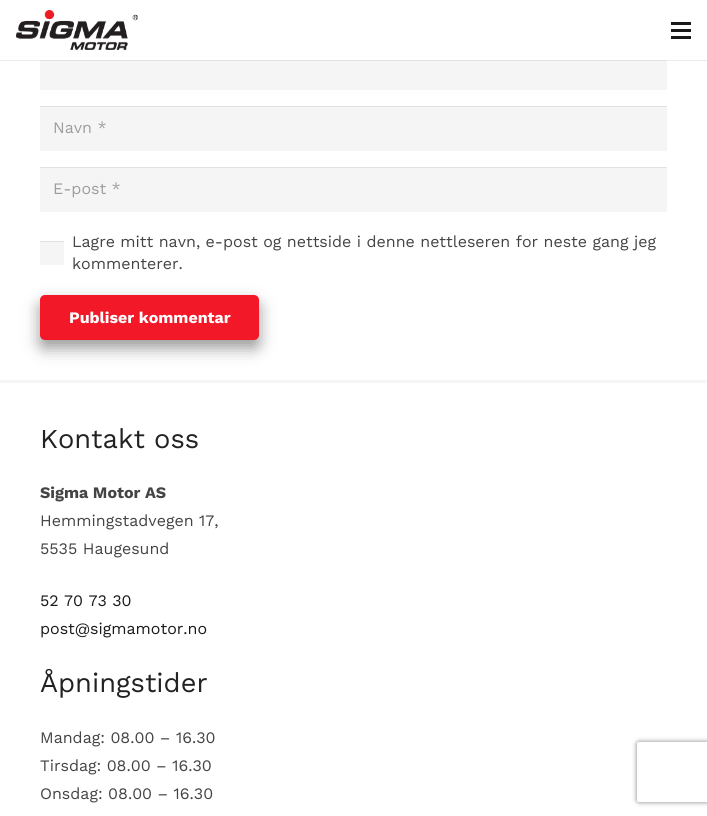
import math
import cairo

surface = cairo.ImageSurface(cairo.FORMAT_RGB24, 707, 816)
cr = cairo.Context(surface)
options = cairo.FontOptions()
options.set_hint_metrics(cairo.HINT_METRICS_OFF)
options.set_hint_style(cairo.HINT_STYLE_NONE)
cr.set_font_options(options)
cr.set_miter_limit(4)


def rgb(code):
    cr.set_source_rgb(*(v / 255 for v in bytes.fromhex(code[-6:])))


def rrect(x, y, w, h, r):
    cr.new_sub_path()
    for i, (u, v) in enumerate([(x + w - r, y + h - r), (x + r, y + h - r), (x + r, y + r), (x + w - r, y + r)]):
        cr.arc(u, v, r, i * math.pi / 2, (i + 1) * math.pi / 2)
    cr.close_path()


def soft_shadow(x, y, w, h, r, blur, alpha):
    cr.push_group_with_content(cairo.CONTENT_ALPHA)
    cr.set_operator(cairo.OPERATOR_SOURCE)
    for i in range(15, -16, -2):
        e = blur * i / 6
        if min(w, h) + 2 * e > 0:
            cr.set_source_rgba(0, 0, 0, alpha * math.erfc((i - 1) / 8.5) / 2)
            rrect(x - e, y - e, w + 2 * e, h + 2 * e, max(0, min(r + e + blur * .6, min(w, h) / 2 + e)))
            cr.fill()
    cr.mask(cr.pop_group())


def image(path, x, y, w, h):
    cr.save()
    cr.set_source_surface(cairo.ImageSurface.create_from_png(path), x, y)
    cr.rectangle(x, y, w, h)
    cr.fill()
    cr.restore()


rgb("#ffffff")
cr.paint()
rgb("#ebebeb")
cr.rectangle(0, 60, 707, 1)
cr.fill()
image("img/1.png", 16, 10, 122, 40)
for x, y, w, h, color in [
    (671, 29, 20, 3, "#1a1a1a"),
    (671, 22, 20, 3, "#1a1a1a"),
    (671, 36, 20, 3, "#1a1a1a"),
    (40, 61, 627, 29, "#f5f5f5"),
    (40, 60, 627, 1, "#e1e1e1"),
    (40, 107, 627, 44, "#f5f5f5"),
    (40, 106, 627, 1, "#e1e1e1"),
    (40, 168, 627, 44, "#f5f5f5"),
    (40, 167, 627, 1, "#e1e1e1"),
    (40, 242, 24, 23, "#f5f5f5"),
    (40, 241, 24, 1, "#e1e1e1"),
]:
    rgb(color)
    cr.rectangle(x, y, w, h)
    cr.fill()
rgb("#1a1a1a")
soft_shadow(40, 303, 219, 45, 5, 8, 0.45)
rgb("#f21827")
rrect(40, 295, 219, 45, 5)
cr.fill()
rgb("#f6f6f6")
cr.rectangle(0, 380, 707, 3)
cr.fill()
cr.save()
cr.set_fill_rule(cairo.FILL_RULE_EVEN_ODD)
cr.new_path()
cr.move_to(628, 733)
cr.line_to(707, 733)
cr.line_to(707, 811)
cr.line_to(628, 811)
cr.close_path()
cr.move_to(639, 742)
cr.line_to(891, 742)
cr.curve_to(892, 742, 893, 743, 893, 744)
cr.line_to(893, 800)
cr.curve_to(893, 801, 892, 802, 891, 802)
cr.line_to(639, 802)
cr.curve_to(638, 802, 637, 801, 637, 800)
cr.line_to(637, 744)
cr.curve_to(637, 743, 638, 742, 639, 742)
cr.close_path()
cr.clip()
rgb("#808080")
soft_shadow(637, 742, 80, 60, 2, 2.5, 1)
cr.restore()
cr.select_font_face("Work Sans")
cr.set_font_size(16)
rgb("#9d9d9d")
cr.move_to(53, 133)
cr.show_text("Navn *")
cr.move_to(53, 194)
cr.show_text("E-post *")
rgb("#444444")
cr.move_to(72, 247)
cr.show_text("Lagre mitt navn, e-post og nettside i denne nettleseren for neste gang jeg")
cr.move_to(72, 269)
cr.show_text("kommenterer.")
cr.select_font_face("Work Sans", cairo.FONT_SLANT_NORMAL, cairo.FONT_WEIGHT_BOLD)
rgb("#ffffff")
cr.move_to(69, 323)
cr.show_text("Publiser kommentar")
cr.select_font_face("Work Sans")
cr.set_font_size(27.25)
rgb("#222222")
cr.move_to(40, 448)
cr.show_text("Kontakt oss")
cr.select_font_face("Work Sans", cairo.FONT_SLANT_NORMAL, cairo.FONT_WEIGHT_BOLD)
cr.set_font_size(16)
rgb("#444444")
cr.move_to(40, 498)
cr.show_text("Sigma Motor AS")
cr.select_font_face("Work Sans")
cr.move_to(40, 526)
cr.show_text("Hemmingstadvegen 17,")
cr.move_to(40, 554)
cr.show_text("5535 Haugesund")
rgb("#1a1a1a")
cr.move_to(40, 606)
cr.show_text("52 70 73 30")
cr.move_to(40, 634)
cr.show_text("post@sigmamotor.no")
cr.set_font_size(27.25)
rgb("#222222")
cr.move_to(40, 692)
cr.show_text("Åpningstider")
cr.set_font_size(16)
rgb("#444444")
for x, y, s in [
    (40, 743, "Mandag: 08.00 – 16.30"),
    (40, 771, "Tirsdag: 08.00 – 16.30"),
    (40, 799, "Onsdag: 08.00 – 16.30"),
]:
    cr.move_to(x, y)
    cr.show_text(s)
surface.write_to_png("page.png")
